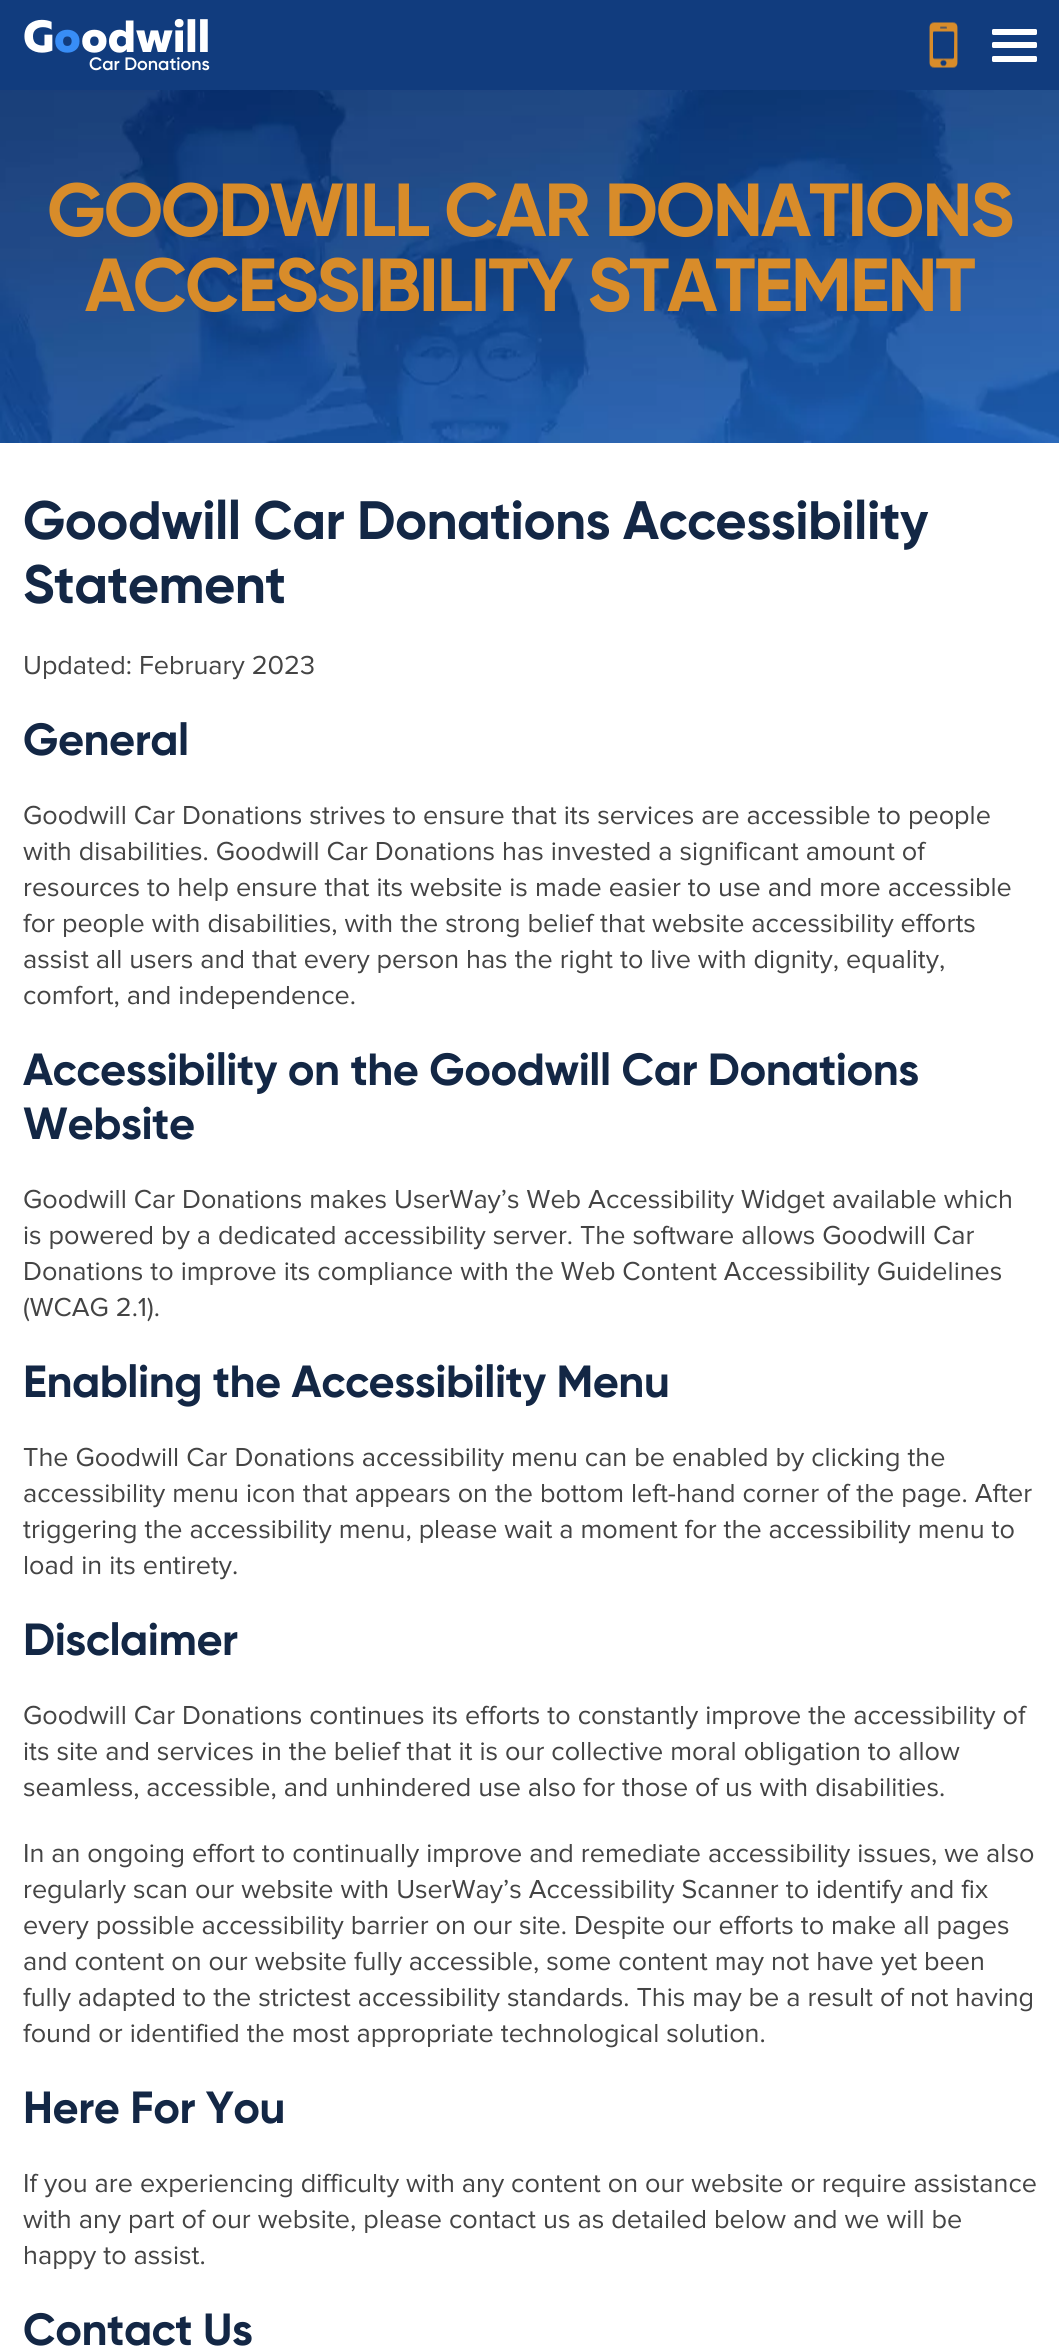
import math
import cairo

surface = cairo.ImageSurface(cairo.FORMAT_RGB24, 1059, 2350)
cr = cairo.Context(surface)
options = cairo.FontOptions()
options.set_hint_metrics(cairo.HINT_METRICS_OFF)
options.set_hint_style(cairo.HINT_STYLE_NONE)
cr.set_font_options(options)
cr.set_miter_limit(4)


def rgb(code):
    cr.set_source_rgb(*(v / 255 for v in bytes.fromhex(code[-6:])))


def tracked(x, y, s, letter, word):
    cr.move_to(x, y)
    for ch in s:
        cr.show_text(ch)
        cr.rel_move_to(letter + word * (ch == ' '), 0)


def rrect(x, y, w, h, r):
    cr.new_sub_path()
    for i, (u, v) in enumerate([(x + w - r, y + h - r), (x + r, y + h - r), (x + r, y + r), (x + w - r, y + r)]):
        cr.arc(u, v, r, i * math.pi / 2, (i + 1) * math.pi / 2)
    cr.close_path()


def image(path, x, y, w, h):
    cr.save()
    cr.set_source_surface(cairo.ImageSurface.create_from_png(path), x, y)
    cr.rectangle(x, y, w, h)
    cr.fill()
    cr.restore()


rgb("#ffffff")
cr.paint()
rgb("#113c7e")
cr.rectangle(0, 0, 1059, 90)
cr.fill()
image("img/1.png", 929, 22, 29, 46)
rgb("#ffffff")
rrect(992, 29, 45, 6, 1.5)
cr.fill()
rrect(992, 56, 45, 6, 1.5)
cr.fill()
rrect(992, 42, 45, 6, 1.5)
cr.fill()
image("img/2.png", 0, 90, 1059, 353)
cr.select_font_face("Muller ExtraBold")
cr.set_font_size(45)
cr.move_to(23, 52)
cr.show_text("G")
rgb("#388df6")
cr.move_to(54, 52)
cr.show_text("o")
rgb("#ffffff")
cr.move_to(81, 52)
cr.show_text("odwill")
cr.select_font_face("Gilroy SemiBold")
cr.set_font_size(18)
cr.move_to(89, 70)
cr.show_text("Car Donations")
cr.select_font_face("Gilroy", cairo.FONT_SLANT_NORMAL, cairo.FONT_WEIGHT_BOLD)
cr.set_font_size(75)
rgb("#d88c2a")
tracked(47, 236, "GOODWILL CAR DONATIONS", -2.25, 0)
tracked(85, 311, "ACCESSIBILITY STATEMENT", -2.25, 0)
cr.set_font_size(54)
rgb("#132745")
tracked(23, 539, "Goodwill Car Donations Accessibility", -0.55, 0)
tracked(23, 603, "Statement", -0.55, 0)
cr.select_font_face("Proxima Nova")
cr.set_font_size(27)
rgb("#444444")
cr.move_to(23, 674)
cr.show_text("Updated: February 2023")
cr.select_font_face("Gilroy", cairo.FONT_SLANT_NORMAL, cairo.FONT_WEIGHT_BOLD)
cr.set_font_size(45)
rgb("#132745")
tracked(23, 755, "General", -0.45, 0)
cr.select_font_face("Proxima Nova")
cr.set_font_size(27)
rgb("#444444")
for x, y, s in [
    (23, 824, "Goodwill Car Donations strives to ensure that its services are accessible to people"),
    (23, 860, "with disabilities. Goodwill Car Donations has invested a significant amount of"),
    (23, 896, "resources to help ensure that its website is made easier to use and more accessible"),
    (23, 932, "for people with disabilities, with the strong belief that website accessibility efforts"),
    (23, 968, "assist all users and that every person has the right to live with dignity, equality,"),
    (23, 1004, "comfort, and independence."),
]:
    cr.move_to(x, y)
    cr.show_text(s)
cr.select_font_face("Gilroy", cairo.FONT_SLANT_NORMAL, cairo.FONT_WEIGHT_BOLD)
cr.set_font_size(45)
rgb("#132745")
tracked(23, 1085, "Accessibility on the Goodwill Car Donations", -0.45, 0)
tracked(23, 1139, "Website", -0.45, 0)
cr.select_font_face("Proxima Nova")
cr.set_font_size(27)
rgb("#444444")
for x, y, s in [
    (23, 1208, "Goodwill Car Donations makes UserWay’s Web Accessibility Widget available which"),
    (23, 1244, "is powered by a dedicated accessibility server. The software allows Goodwill Car"),
    (23, 1280, "Donations to improve its compliance with the Web Content Accessibility Guidelines"),
    (23, 1316, "(WCAG 2.1)."),
]:
    cr.move_to(x, y)
    cr.show_text(s)
cr.select_font_face("Gilroy", cairo.FONT_SLANT_NORMAL, cairo.FONT_WEIGHT_BOLD)
cr.set_font_size(45)
rgb("#132745")
tracked(23, 1397, "Enabling the Accessibility Menu", -0.45, 0)
cr.select_font_face("Proxima Nova")
cr.set_font_size(27)
rgb("#444444")
for x, y, s in [
    (23, 1466, "The Goodwill Car Donations accessibility menu can be enabled by clicking the"),
    (23, 1502, "accessibility menu icon that appears on the bottom left-hand corner of the page. After"),
    (23, 1538, "triggering the accessibility menu, please wait a moment for the accessibility menu to"),
    (23, 1574, "load in its entirety."),
]:
    cr.move_to(x, y)
    cr.show_text(s)
cr.select_font_face("Gilroy", cairo.FONT_SLANT_NORMAL, cairo.FONT_WEIGHT_BOLD)
cr.set_font_size(45)
rgb("#132745")
tracked(23, 1655, "Disclaimer", -0.45, 0)
cr.select_font_face("Proxima Nova")
cr.set_font_size(27)
rgb("#444444")
for x, y, s in [
    (23, 1724, "Goodwill Car Donations continues its efforts to constantly improve the accessibility of"),
    (23, 1760, "its site and services in the belief that it is our collective moral obligation to allow"),
    (23, 1796, "seamless, accessible, and unhindered use also for those of us with disabilities."),
    (23, 1862, "In an ongoing effort to continually improve and remediate accessibility issues, we also"),
    (23, 1898, "regularly scan our website with UserWay’s Accessibility Scanner to identify and fix"),
    (23, 1934, "every possible accessibility barrier on our site. Despite our efforts to make all pages"),
    (23, 1970, "and content on our website fully accessible, some content may not have yet been"),
    (23, 2006, "fully adapted to the strictest accessibility standards. This may be a result of not having"),
    (23, 2042, "found or identified the most appropriate technological solution."),
]:
    cr.move_to(x, y)
    cr.show_text(s)
cr.select_font_face("Gilroy", cairo.FONT_SLANT_NORMAL, cairo.FONT_WEIGHT_BOLD)
cr.set_font_size(45)
rgb("#132745")
tracked(23, 2123, "Here For You", -0.45, 0)
cr.select_font_face("Proxima Nova")
cr.set_font_size(27)
rgb("#444444")
for x, y, s in [
    (23, 2192, "If you are experiencing difficulty with any content on our website or require assistance"),
    (23, 2228, "with any part of our website, please contact us as detailed below and we will be"),
    (23, 2264, "happy to assist."),
]:
    cr.move_to(x, y)
    cr.show_text(s)
cr.select_font_face("Gilroy", cairo.FONT_SLANT_NORMAL, cairo.FONT_WEIGHT_BOLD)
cr.set_font_size(45)
rgb("#132745")
tracked(23, 2345, "Contact Us", -0.45, 0)
surface.write_to_png("page.png")
